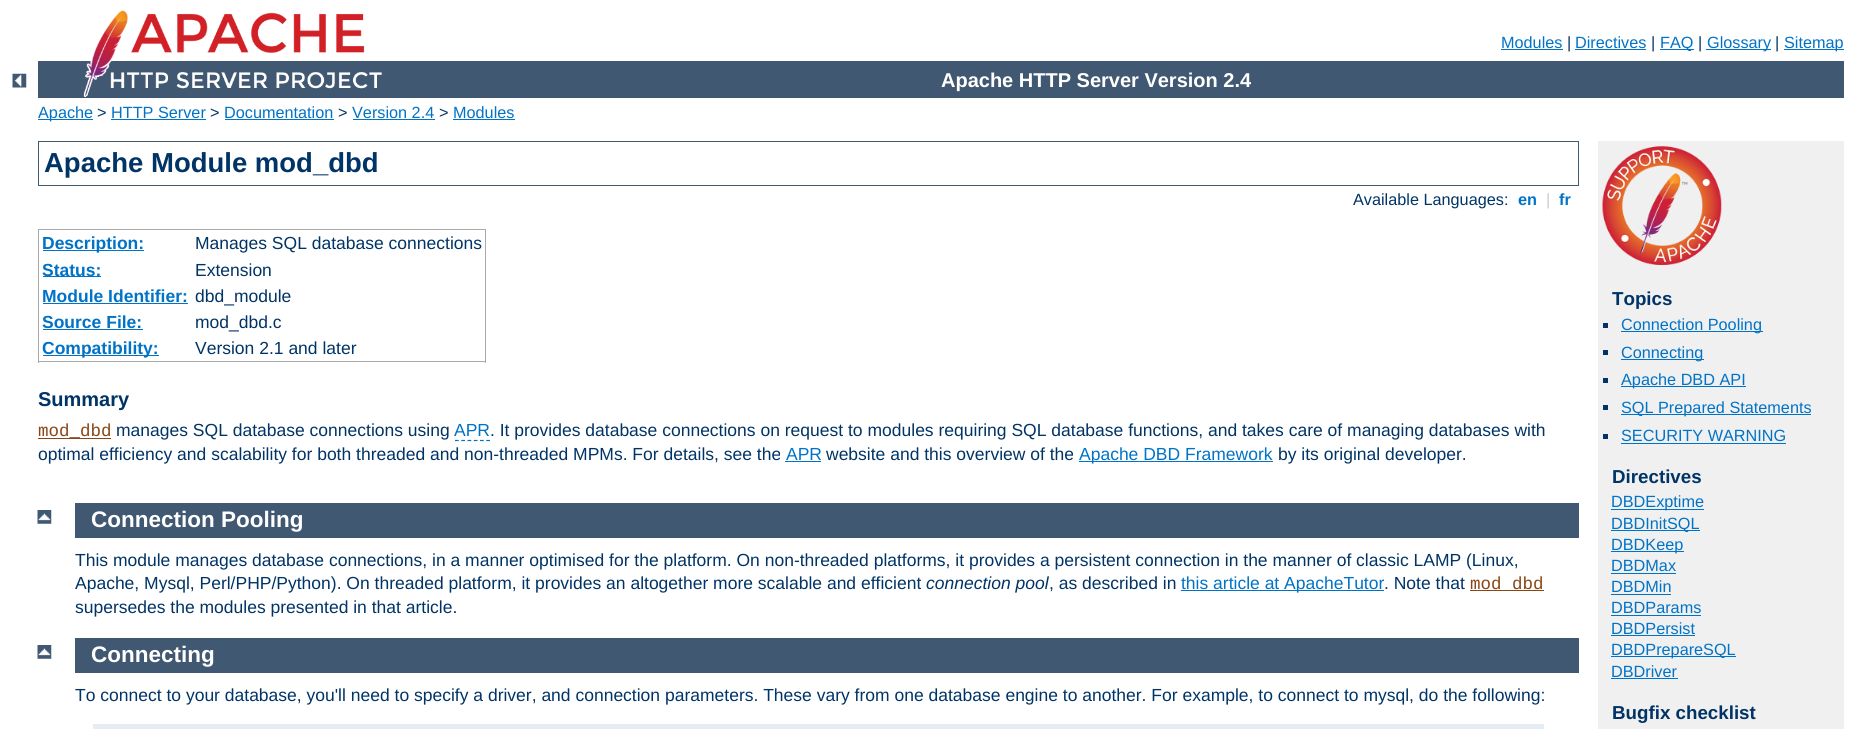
import math
import cairo

surface = cairo.ImageSurface(cairo.FORMAT_RGB24, 1861, 729)
cr = cairo.Context(surface)
options = cairo.FontOptions()
options.set_hint_metrics(cairo.HINT_METRICS_OFF)
options.set_hint_style(cairo.HINT_STYLE_NONE)
cr.set_font_options(options)
cr.set_miter_limit(4)


def rgb(code):
    cr.set_source_rgb(*(v / 255 for v in bytes.fromhex(code[-6:])))


def image(path, x, y, w, h):
    cr.save()
    cr.set_source_surface(cairo.ImageSurface.create_from_png(path), x, y)
    cr.rectangle(x, y, w, h)
    cr.fill()
    cr.restore()


rgb("#ffffff")
cr.paint()
image("img/1.png", 12, 73, 15, 15)
rgb("#405871")
cr.rectangle(38, 61, 1806, 37)
cr.fill()
image("img/2.png", 83, 10, 299, 87)
for x, y, w, h, color in [
    (1501, 49, 62, 1, "#0073c7"),
    (1575, 49, 71, 1, "#0073c7"),
    (1660, 49, 34, 1, "#0073c7"),
    (1706, 49, 65, 1, "#0073c7"),
    (1784, 49, 60, 1, "#0073c7"),
    (38, 119, 55, 1, "#0073c7"),
    (111, 119, 95, 1, "#0073c7"),
    (225, 119, 109, 1, "#0073c7"),
    (353, 119, 82, 1, "#0073c7"),
    (453, 119, 62, 1, "#0073c7"),
]:
    rgb(color)
    cr.rectangle(x, y, w, h)
    cr.fill()
cr.rectangle(38.5, 141.5, 1540, 44)
rgb("#405871")
cr.set_line_width(1)
cr.stroke()
for x, y, w, h, color in [
    (38, 229, 448, 1, "#aaaaaa"),
    (485, 229, 1, 134, "#aaaaaa"),
    (38, 361, 448, 1, "#aaaaaa"),
    (38, 229, 1, 134, "#aaaaaa"),
    (43, 250, 101, 1, "#0073c7"),
    (43, 276, 58, 1, "#0073c7"),
    (43, 303, 145, 1, "#0073c7"),
    (43, 329, 100, 1, "#0073c7"),
    (43, 355, 116, 1, "#0073c7"),
    (38, 438, 73, 1, "#8b4513"),
]:
    rgb(color)
    cr.rectangle(x, y, w, h)
    cr.fill()
cr.new_path()
cr.move_to(455, 440.5)
cr.line_to(490, 440.5)
rgb("#0073c7")
cr.set_line_width(1.2)
cr.set_dash([3.75, 2.5])
cr.stroke()
for x, y, w, h, color in [
    (785, 461, 36, 1, "#0073c7"),
    (1079, 461, 194, 1, "#0073c7"),
    (1598, 141, 246, 588, "#f0f0f0"),
]:
    rgb(color)
    cr.rectangle(x, y, w, h)
    cr.fill()
image("img/3.png", 1602, 146, 120, 119)
for x, y, w, h, color in [
    (1603, 323, 5, 5, "#003366"),
    (1621, 331, 142, 1, "#0073c7"),
    (1603, 350, 5, 5, "#003366"),
    (1621, 359, 83, 1, "#0073c7"),
    (1603, 378, 5, 5, "#003366"),
    (1621, 386, 125, 1, "#0073c7"),
    (1603, 405, 5, 5, "#003366"),
    (1621, 414, 190, 1, "#0073c7"),
    (1603, 434, 5, 5, "#003366"),
    (1621, 443, 165, 1, "#0073c7"),
    (1611, 509, 93, 1, "#0073c7"),
    (1611, 530, 89, 1, "#0073c7"),
    (1611, 551, 73, 1, "#0073c7"),
    (1611, 573, 65, 1, "#0073c7"),
    (1611, 594, 60, 1, "#0073c7"),
    (1611, 615, 90, 1, "#0073c7"),
    (1611, 635, 84, 1, "#0073c7"),
    (1611, 656, 125, 1, "#0073c7"),
    (1611, 678, 67, 1, "#0073c7"),
]:
    rgb(color)
    cr.rectangle(x, y, w, h)
    cr.fill()
image("img/4.png", 37, 510, 15, 14)
for x, y, w, h, color in [
    (75, 503, 1504, 35, "#405871"),
    (1181, 590, 203, 1, "#0073c7"),
    (1470, 590, 74, 1, "#8b4513"),
]:
    rgb(color)
    cr.rectangle(x, y, w, h)
    cr.fill()
image("img/4.png", 37, 645, 15, 14)
rgb("#405871")
cr.rectangle(75, 638, 1504, 35)
cr.fill()
rgb("#e5ecf3")
cr.rectangle(93, 724, 1451, 5)
cr.fill()
cr.select_font_face("Liberation Sans")
cr.set_font_size(16.25)
rgb("#0073c7")
cr.move_to(1501, 48)
cr.show_text("Modules")
rgb("#003366")
cr.move_to(1567, 48)
cr.show_text("|")
rgb("#0073c7")
cr.move_to(1575, 48)
cr.show_text("Directives")
rgb("#003366")
cr.move_to(1651, 48)
cr.show_text("|")
rgb("#0073c7")
cr.move_to(1660, 48)
cr.show_text("FAQ")
rgb("#003366")
cr.move_to(1698, 48)
cr.show_text("|")
rgb("#0073c7")
cr.move_to(1707, 48)
cr.show_text("Glossary")
rgb("#003366")
cr.move_to(1775, 48)
cr.show_text("|")
rgb("#0073c7")
cr.move_to(1784, 48)
cr.show_text("Sitemap")
cr.select_font_face("Liberation Sans", cairo.FONT_SLANT_NORMAL, cairo.FONT_WEIGHT_BOLD)
cr.set_font_size(20)
rgb("#ffffff")
cr.move_to(941, 87)
cr.show_text("Apache HTTP Server Version 2.4")
cr.select_font_face("Liberation Sans")
cr.set_font_size(16.25)
rgb("#0073c7")
cr.move_to(38, 118)
cr.show_text("Apache")
rgb("#003366")
cr.move_to(97, 118)
cr.show_text(">")
rgb("#0073c7")
cr.move_to(111, 118)
cr.show_text("HTTP Server")
rgb("#003366")
cr.move_to(210, 118)
cr.show_text(">")
rgb("#0073c7")
cr.move_to(224, 118)
cr.show_text("Documentation")
rgb("#003366")
cr.move_to(338, 118)
cr.show_text(">")
rgb("#0073c7")
cr.move_to(352, 118)
cr.show_text("Version 2.4")
rgb("#003366")
cr.move_to(439, 118)
cr.show_text(">")
rgb("#0073c7")
cr.move_to(453, 118)
cr.show_text("Modules")
cr.select_font_face("Liberation Sans", cairo.FONT_SLANT_NORMAL, cairo.FONT_WEIGHT_BOLD)
cr.set_font_size(27.5)
rgb("#003366")
cr.move_to(44, 172)
cr.show_text("Apache Module mod_dbd")
cr.select_font_face("Liberation Sans")
cr.set_font_size(16.25)
cr.move_to(1353, 205)
cr.show_text("Available Languages:")
cr.select_font_face("Liberation Sans", cairo.FONT_SLANT_NORMAL, cairo.FONT_WEIGHT_BOLD)
rgb("#0073c7")
cr.move_to(1518, 205)
cr.show_text("en")
cr.select_font_face("Liberation Sans")
rgb("#cccccc")
cr.move_to(1546, 205)
cr.show_text("|")
cr.select_font_face("Liberation Sans", cairo.FONT_SLANT_NORMAL, cairo.FONT_WEIGHT_BOLD)
rgb("#0073c7")
cr.move_to(1559, 205)
cr.show_text("fr")
cr.set_font_size(17.5)
cr.move_to(42, 249)
cr.show_text("Description:")
cr.select_font_face("Liberation Sans")
rgb("#003366")
cr.move_to(195, 249)
cr.show_text("Manages SQL database connections")
cr.select_font_face("Liberation Sans", cairo.FONT_SLANT_NORMAL, cairo.FONT_WEIGHT_BOLD)
rgb("#0073c7")
cr.move_to(42, 276)
cr.show_text("Status:")
cr.select_font_face("Liberation Sans")
rgb("#003366")
cr.move_to(195, 276)
cr.show_text("Extension")
cr.select_font_face("Liberation Sans", cairo.FONT_SLANT_NORMAL, cairo.FONT_WEIGHT_BOLD)
rgb("#0073c7")
cr.move_to(42, 302)
cr.show_text("Module Identifier:")
cr.select_font_face("Liberation Sans")
rgb("#003366")
cr.move_to(195, 302)
cr.show_text("dbd_module")
cr.select_font_face("Liberation Sans", cairo.FONT_SLANT_NORMAL, cairo.FONT_WEIGHT_BOLD)
rgb("#0073c7")
cr.move_to(42, 328)
cr.show_text("Source File:")
cr.select_font_face("Liberation Sans")
rgb("#003366")
cr.move_to(195, 328)
cr.show_text("mod_dbd.c")
cr.select_font_face("Liberation Sans", cairo.FONT_SLANT_NORMAL, cairo.FONT_WEIGHT_BOLD)
rgb("#0073c7")
cr.move_to(42, 354)
cr.show_text("Compatibility:")
cr.select_font_face("Liberation Sans")
rgb("#003366")
cr.move_to(195, 354)
cr.show_text("Version 2.1 and later")
cr.select_font_face("Liberation Sans", cairo.FONT_SLANT_NORMAL, cairo.FONT_WEIGHT_BOLD)
cr.set_font_size(20)
cr.move_to(38, 406)
cr.show_text("Summary")
cr.select_font_face("Liberation Mono")
cr.set_font_size(17.5)
rgb("#8b4513")
cr.move_to(38, 436)
cr.show_text("mod_dbd")
cr.select_font_face("Liberation Sans")
rgb("#003366")
cr.move_to(116, 436)
cr.show_text("manages SQL database connections using")
rgb("#0073c7")
cr.move_to(454, 436)
cr.show_text("APR")
rgb("#003366")
cr.move_to(490, 436)
cr.show_text(". It provides database connections on request to modules requiring SQL database functions, and takes care of managing databases with")
cr.move_to(38, 460)
cr.show_text("optimal efficiency and scalability for both threaded and non-threaded MPMs. For details, see the")
rgb("#0073c7")
cr.move_to(786, 460)
cr.show_text("APR")
rgb("#003366")
cr.move_to(826, 460)
cr.show_text("website and this overview of the")
rgb("#0073c7")
cr.move_to(1079, 460)
cr.show_text("Apache DBD Framework")
rgb("#003366")
cr.move_to(1278, 460)
cr.show_text("by its original developer.")
cr.select_font_face("Liberation Sans", cairo.FONT_SLANT_NORMAL, cairo.FONT_WEIGHT_BOLD)
cr.set_font_size(18.75)
cr.move_to(1612, 305)
cr.show_text("Topics")
cr.select_font_face("Liberation Sans")
cr.set_font_size(16.25)
rgb("#0073c7")
for x, y, s in [
    (1621, 330, "Connection Pooling"),
    (1621, 358, "Connecting"),
    (1621, 385, "Apache DBD API"),
    (1621, 413, "SQL Prepared Statements"),
    (1621, 441, "SECURITY WARNING"),
]:
    cr.move_to(x, y)
    cr.show_text(s)
cr.select_font_face("Liberation Sans", cairo.FONT_SLANT_NORMAL, cairo.FONT_WEIGHT_BOLD)
cr.set_font_size(18.75)
rgb("#003366")
cr.move_to(1612, 483)
cr.show_text("Directives")
cr.select_font_face("Liberation Sans")
cr.set_font_size(16.25)
rgb("#0073c7")
for x, y, s in [
    (1611, 507, "DBDExptime"),
    (1611, 529, "DBDInitSQL"),
    (1611, 550, "DBDKeep"),
    (1611, 571, "DBDMax"),
    (1611, 592, "DBDMin"),
    (1611, 613, "DBDParams"),
    (1611, 634, "DBDPersist"),
    (1611, 655, "DBDPrepareSQL"),
    (1611, 677, "DBDriver"),
]:
    cr.move_to(x, y)
    cr.show_text(s)
cr.select_font_face("Liberation Sans", cairo.FONT_SLANT_NORMAL, cairo.FONT_WEIGHT_BOLD)
cr.set_font_size(18.75)
rgb("#003366")
cr.move_to(1612, 719)
cr.show_text("Bugfix checklist")
cr.set_font_size(22.5)
rgb("#ffffff")
cr.move_to(91, 527)
cr.show_text("Connection Pooling")
cr.select_font_face("Liberation Sans")
cr.set_font_size(17.5)
rgb("#003366")
cr.move_to(75, 566)
cr.show_text("This module manages database connections, in a manner optimised for the platform. On non-threaded platforms, it provides a persistent connection in the manner of classic LAMP (Linux,")
cr.move_to(75, 589)
cr.show_text("Apache, Mysql, Perl/PHP/Python). On threaded platform, it provides an altogether more scalable and efficient")
cr.select_font_face("Liberation Sans", cairo.FONT_SLANT_ITALIC)
cr.move_to(926, 589)
cr.show_text("connection pool")
cr.select_font_face("Liberation Sans")
cr.move_to(1049, 589)
cr.show_text(", as described in")
rgb("#0073c7")
cr.move_to(1181, 589)
cr.show_text("this article at ApacheTutor")
rgb("#003366")
cr.move_to(1384, 589)
cr.show_text(". Note that")
cr.select_font_face("Liberation Mono")
rgb("#8b4513")
cr.move_to(1470, 589)
cr.show_text("mod_dbd")
cr.select_font_face("Liberation Sans")
rgb("#003366")
cr.move_to(75, 613)
cr.show_text("supersedes the modules presented in that article.")
cr.select_font_face("Liberation Sans", cairo.FONT_SLANT_NORMAL, cairo.FONT_WEIGHT_BOLD)
cr.set_font_size(22.5)
rgb("#ffffff")
cr.move_to(91, 662)
cr.show_text("Connecting")
cr.select_font_face("Liberation Sans")
cr.set_font_size(17.5)
rgb("#003366")
cr.move_to(75, 701)
cr.show_text("To connect to your database, you'll need to specify a driver, and connection parameters. These vary from one database engine to another. For example, to connect to mysql, do the following:")
surface.write_to_png("page.png")
